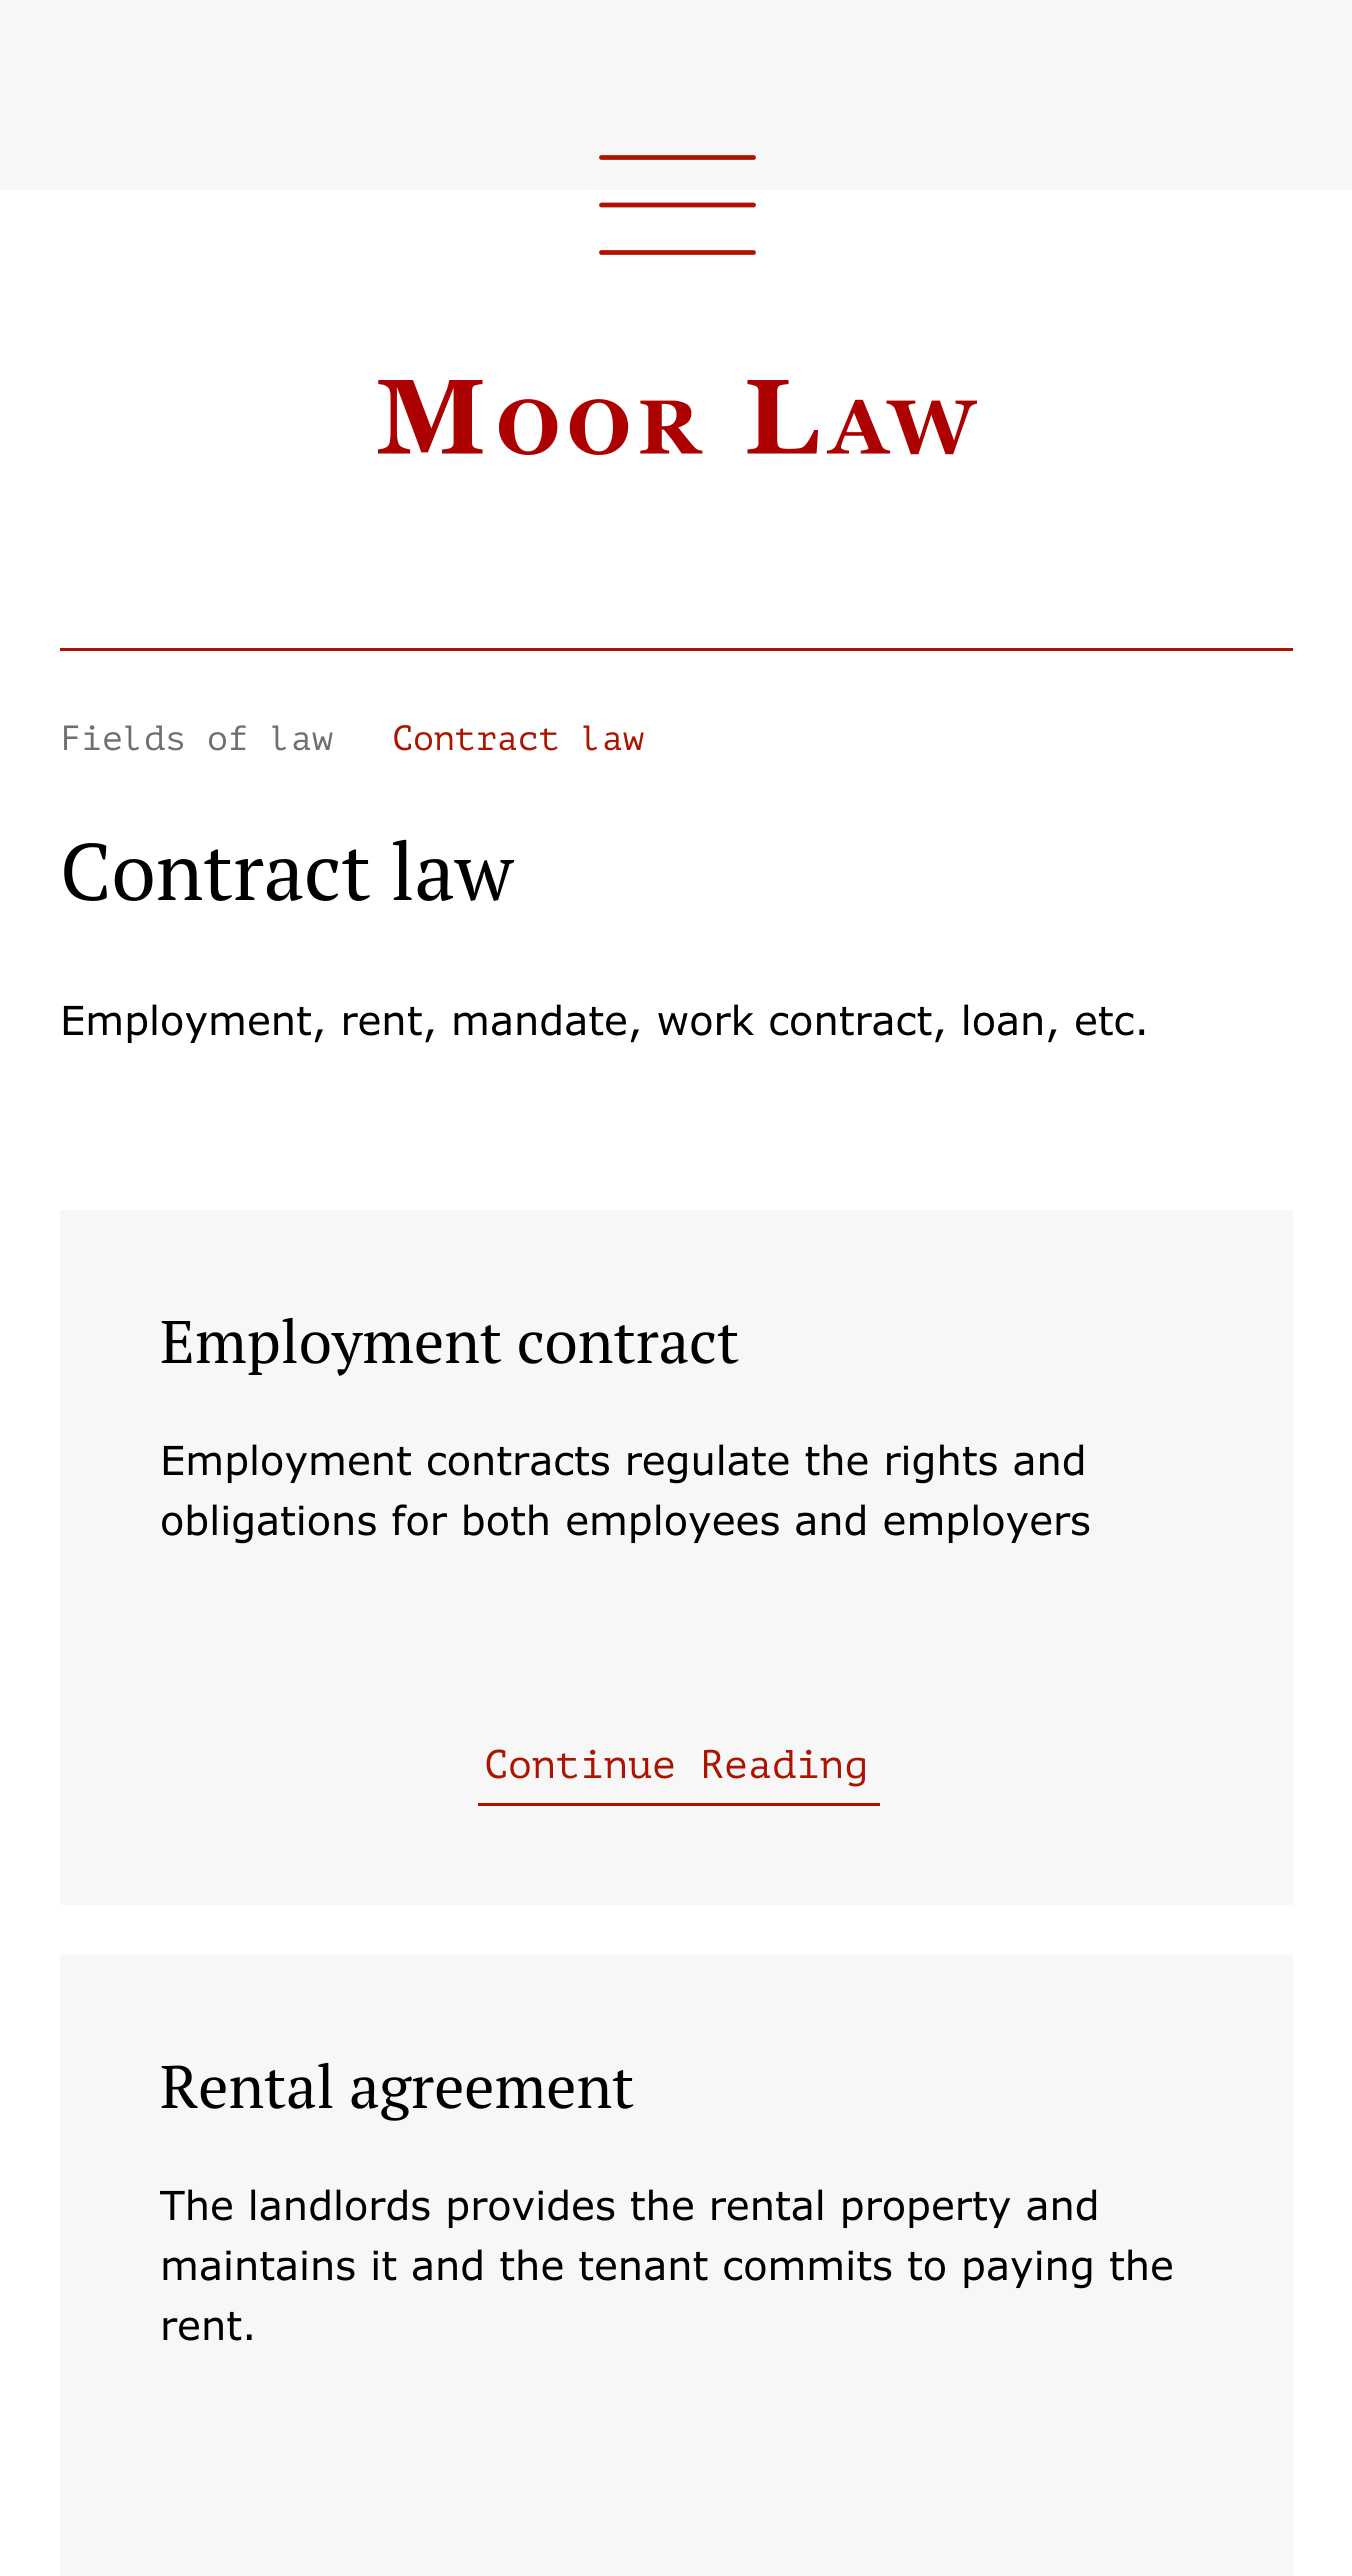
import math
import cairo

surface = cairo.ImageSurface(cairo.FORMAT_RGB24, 1352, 2576)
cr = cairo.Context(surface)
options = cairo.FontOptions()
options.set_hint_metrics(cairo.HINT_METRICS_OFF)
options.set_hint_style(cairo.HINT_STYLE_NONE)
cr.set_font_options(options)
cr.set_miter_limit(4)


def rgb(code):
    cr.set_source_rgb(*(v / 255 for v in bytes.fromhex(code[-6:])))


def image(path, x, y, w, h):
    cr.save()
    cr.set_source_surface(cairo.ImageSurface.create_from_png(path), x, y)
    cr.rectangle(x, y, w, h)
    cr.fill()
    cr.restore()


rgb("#ffffff")
cr.paint()
rgb("#f7f7f7")
cr.rectangle(0, 0, 1352, 190)
cr.fill()
cr.new_path()
cr.move_to(601.5, 205)
cr.line_to(753.5, 205)
rgb("#ad1400")
cr.set_line_width(4.8)
cr.set_line_cap(cairo.LINE_CAP_ROUND)
cr.stroke()
cr.new_path()
cr.move_to(601.5, 252.5)
cr.line_to(753.5, 252.5)
cr.stroke()
cr.new_path()
cr.move_to(601.5, 157.5)
cr.line_to(753.5, 157.5)
cr.stroke()
image("img/1.png", 378, 380, 599, 75)
for x, y, w, h, color in [
    (60, 648, 1233, 3, "#ad1400"),
    (60, 1210, 1233, 695, "#f7f7f7"),
    (478, 1803, 402, 3, "#ad1400"),
    (60, 1955, 1233, 621, "#f7f7f7"),
]:
    rgb(color)
    cr.rectangle(x, y, w, h)
    cr.fill()
cr.select_font_face("PT Mono")
cr.set_font_size(35)
rgb("#707070")
cr.move_to(60, 750)
cr.show_text("Fields of law")
rgb("#ad1400")
cr.move_to(392, 750)
cr.show_text("Contract law")
cr.select_font_face("PT Serif")
cr.set_font_size(80)
rgb("#000000")
cr.move_to(60, 900)
cr.show_text("Contract law")
cr.select_font_face("Verdana")
cr.set_font_size(40)
cr.move_to(60, 1035)
cr.show_text("Employment, rent, mandate, work contract, loan, etc.")
cr.select_font_face("PT Serif")
cr.set_font_size(60)
cr.move_to(160, 1363)
cr.show_text("Employment contract")
cr.select_font_face("Verdana")
cr.set_font_size(40)
cr.move_to(160, 1475)
cr.show_text("Employment contracts regulate the rights and")
cr.move_to(160, 1535)
cr.show_text("obligations for both employees and employers")
cr.select_font_face("PT Mono")
rgb("#ad1400")
cr.move_to(484, 1778)
cr.show_text("Continue Reading")
cr.select_font_face("PT Serif")
cr.set_font_size(60)
rgb("#000000")
cr.move_to(160, 2108)
cr.show_text("Rental agreement")
cr.select_font_face("Verdana")
cr.set_font_size(40)
for x, y, s in [
    (160, 2220, "The landlords provides the rental property and"),
    (160, 2280, "maintains it and the tenant commits to paying the"),
    (160, 2340, "rent."),
]:
    cr.move_to(x, y)
    cr.show_text(s)
surface.write_to_png("page.png")
